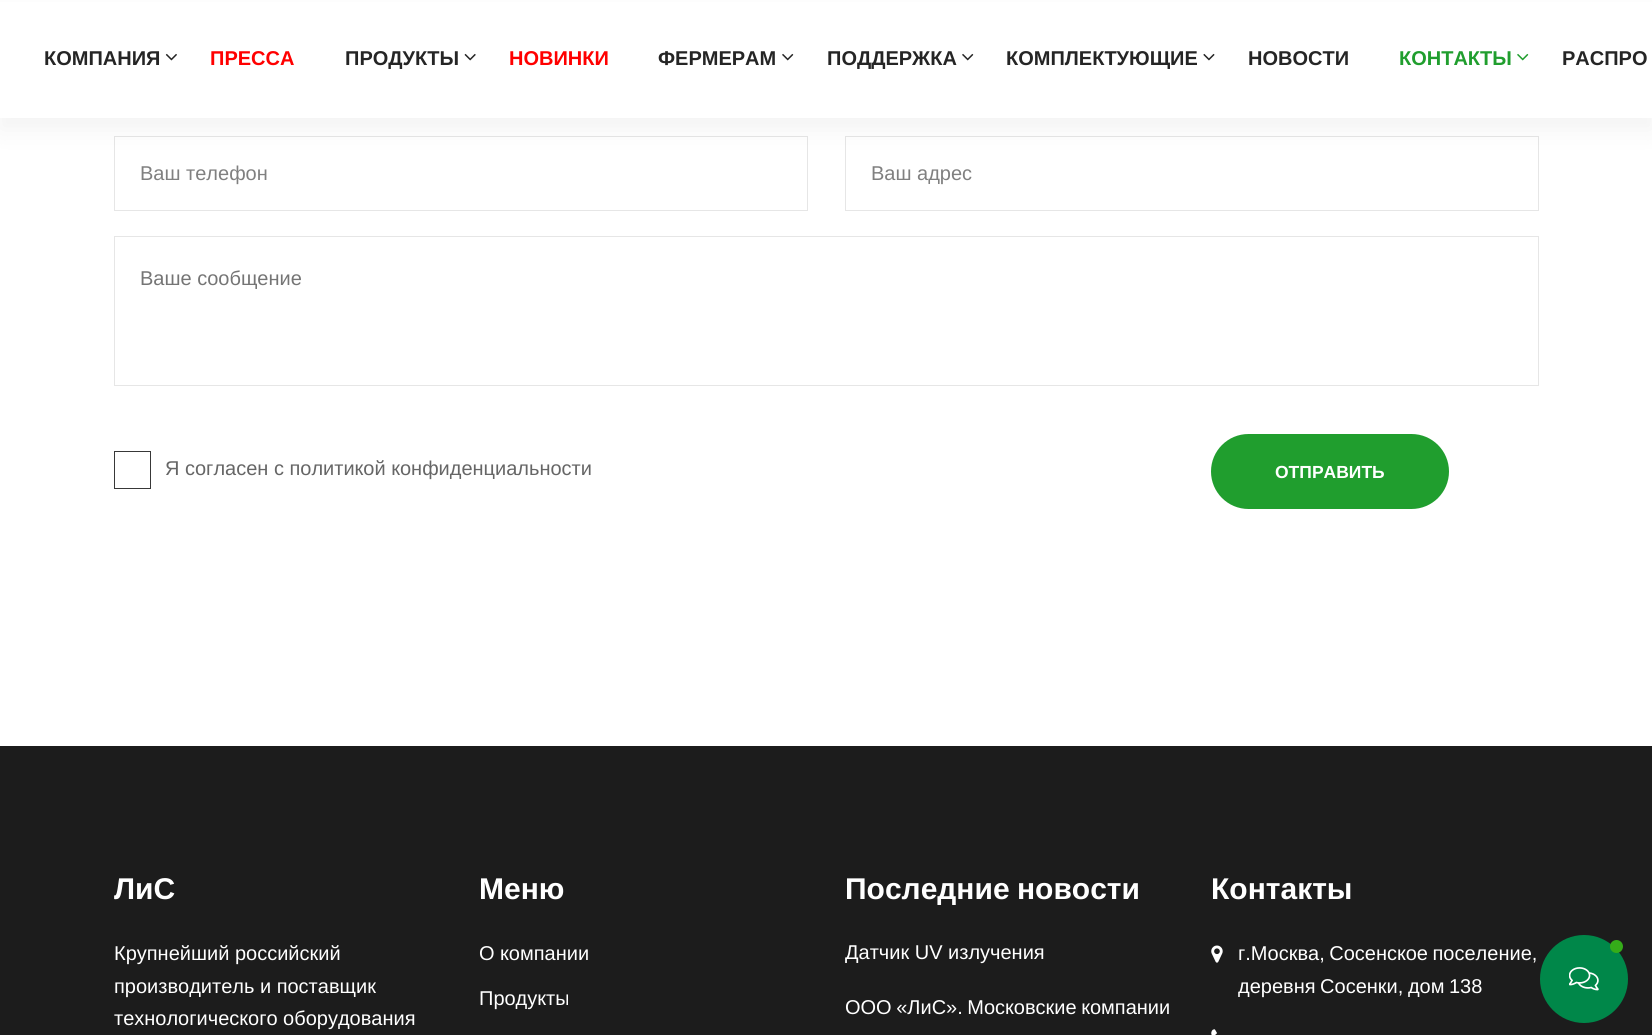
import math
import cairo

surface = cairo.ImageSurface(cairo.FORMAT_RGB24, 1652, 1035)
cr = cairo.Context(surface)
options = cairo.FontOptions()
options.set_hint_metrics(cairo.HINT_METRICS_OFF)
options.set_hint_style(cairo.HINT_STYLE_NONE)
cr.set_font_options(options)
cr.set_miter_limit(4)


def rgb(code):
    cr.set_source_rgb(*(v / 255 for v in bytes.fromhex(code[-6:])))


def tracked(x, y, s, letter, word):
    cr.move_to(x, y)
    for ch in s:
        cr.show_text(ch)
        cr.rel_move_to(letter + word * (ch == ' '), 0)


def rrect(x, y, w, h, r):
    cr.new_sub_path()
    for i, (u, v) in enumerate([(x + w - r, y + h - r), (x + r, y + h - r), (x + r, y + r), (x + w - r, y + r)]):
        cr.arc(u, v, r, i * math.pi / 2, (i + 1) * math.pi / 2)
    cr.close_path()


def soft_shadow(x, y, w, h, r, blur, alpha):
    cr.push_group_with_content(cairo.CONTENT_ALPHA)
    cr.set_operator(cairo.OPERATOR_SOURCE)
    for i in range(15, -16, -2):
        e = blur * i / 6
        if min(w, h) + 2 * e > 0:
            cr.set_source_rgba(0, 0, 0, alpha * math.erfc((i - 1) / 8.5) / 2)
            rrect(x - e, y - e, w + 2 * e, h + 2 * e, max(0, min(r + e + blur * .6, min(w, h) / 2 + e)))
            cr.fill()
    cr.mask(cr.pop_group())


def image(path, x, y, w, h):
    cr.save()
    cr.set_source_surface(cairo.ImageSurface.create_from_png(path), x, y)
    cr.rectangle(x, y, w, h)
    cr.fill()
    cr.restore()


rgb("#ffffff")
cr.paint()
cr.rectangle(114.5, 136.5, 693, 74)
rgb("#e6e6e6")
cr.set_line_width(1)
cr.stroke()
cr.rectangle(845.5, 136.5, 693, 74)
cr.stroke()
rgb("#000000")
soft_shadow(0, 13, 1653, 117, 0, 13, 0.05)
rgb("#ffffff")
cr.rectangle(0, 2, 1652, 116)
cr.fill()
image("img/1.png", 165, 53, 12, 8)
image("img/2.png", 464, 53, 12, 8)
image("img/3.png", 782, 53, 12, 8)
image("img/3.png", 962, 53, 12, 8)
image("img/4.png", 1203, 53, 12, 8)
image("img/5.png", 1517, 53, 12, 8)
cr.rectangle(114.5, 236.5, 1424, 149)
rgb("#e6e6e6")
cr.stroke()
cr.rectangle(114.5, 451.5, 36, 37)
rgb("#383838")
cr.stroke()
rgb("#209e2e")
rrect(1211, 434, 238, 75, 37.5)
cr.fill()
rgb("#1c1c1c")
cr.rectangle(0, 746, 1652, 289)
cr.fill()
image("img/6.png", 1211, 945, 12, 18)
image("img/7.png", 1211, 1029, 6, 6)
rgb("#008749")
cr.arc(1584, 979, 44, 0, 2 * math.pi)
cr.fill()
image("img/8.png", 1569, 967, 30, 24)
rgb("#35ac19")
cr.arc(1616.5, 946.5, 6.5, 0, 2 * math.pi)
cr.fill()
cr.select_font_face("Liberation Sans", cairo.FONT_SLANT_NORMAL, cairo.FONT_WEIGHT_BOLD)
cr.set_font_size(20)
rgb("#252525")
cr.move_to(44, 65)
cr.show_text("КОМПАНИЯ")
rgb("#ff0000")
cr.move_to(210, 65)
cr.show_text("ПРЕССА")
rgb("#252525")
cr.move_to(345, 65)
cr.show_text("ПРОДУКТЫ")
rgb("#ff0000")
cr.move_to(509, 65)
cr.show_text("НОВИНКИ")
rgb("#252525")
for x, y, s in [
    (658, 65, "ФЕРМЕРАМ"),
    (827, 65, "ПОДДЕРЖКА"),
    (1006, 65, "КОМПЛЕКТУЮЩИЕ"),
    (1248, 65, "НОВОСТИ"),
]:
    cr.move_to(x, y)
    cr.show_text(s)
rgb("#209e2e")
cr.move_to(1399, 65)
cr.show_text("КОНТАКТЫ")
rgb("#252525")
cr.move_to(1562, 65)
cr.show_text("РАСПРО")
cr.select_font_face("Liberation Sans")
rgb("#808080")
cr.move_to(140, 180)
cr.show_text("Ваш телефон")
cr.move_to(871, 180)
cr.show_text("Ваш адрес")
rgb("#757575")
cr.move_to(140, 285)
cr.show_text("Ваше сообщение")
rgb("#666666")
cr.move_to(165, 475)
cr.show_text("Я согласен с политикой конфиденциальности")
cr.select_font_face("Liberation Sans", cairo.FONT_SLANT_NORMAL, cairo.FONT_WEIGHT_BOLD)
cr.set_font_size(17.5)
rgb("#ffffff")
cr.move_to(1275, 478)
cr.show_text("ОТПРАВИТЬ")
cr.set_font_size(30)
cr.move_to(114, 899)
cr.show_text("ЛиС")
cr.select_font_face("Liberation Sans")
cr.set_font_size(20)
for x, y, s in [
    (114, 960, "Крупнейший российский"),
    (114, 993, "производитель и поставщик"),
    (114, 1025, "технологического оборудования"),
]:
    cr.move_to(x, y)
    cr.show_text(s)
cr.select_font_face("Liberation Sans", cairo.FONT_SLANT_NORMAL, cairo.FONT_WEIGHT_BOLD)
cr.set_font_size(30)
cr.move_to(479, 899)
cr.show_text("Меню")
cr.select_font_face("Liberation Sans")
cr.set_font_size(20)
cr.move_to(479, 960)
cr.show_text("О компании")
cr.move_to(479, 1005)
cr.show_text("Продукты")
cr.select_font_face("Liberation Sans", cairo.FONT_SLANT_NORMAL, cairo.FONT_WEIGHT_BOLD)
cr.set_font_size(30)
tracked(845, 899, "Последние новости", 0, -1)
cr.select_font_face("Liberation Sans")
cr.set_font_size(20)
cr.move_to(845, 959)
cr.show_text("Датчик UV излучения")
tracked(845, 1014, "ООО «ЛиС». Московские компании", 0, -1)
cr.select_font_face("Liberation Sans", cairo.FONT_SLANT_NORMAL, cairo.FONT_WEIGHT_BOLD)
cr.set_font_size(30)
cr.move_to(1211, 899)
cr.show_text("Контакты")
cr.select_font_face("Liberation Sans")
cr.set_font_size(20)
tracked(1238, 960, "г.Москва, Сосенское поселение,", 0, -1)
tracked(1238, 993, "деревня Сосенки, дом 138", 0, -1)
surface.write_to_png("page.png")
